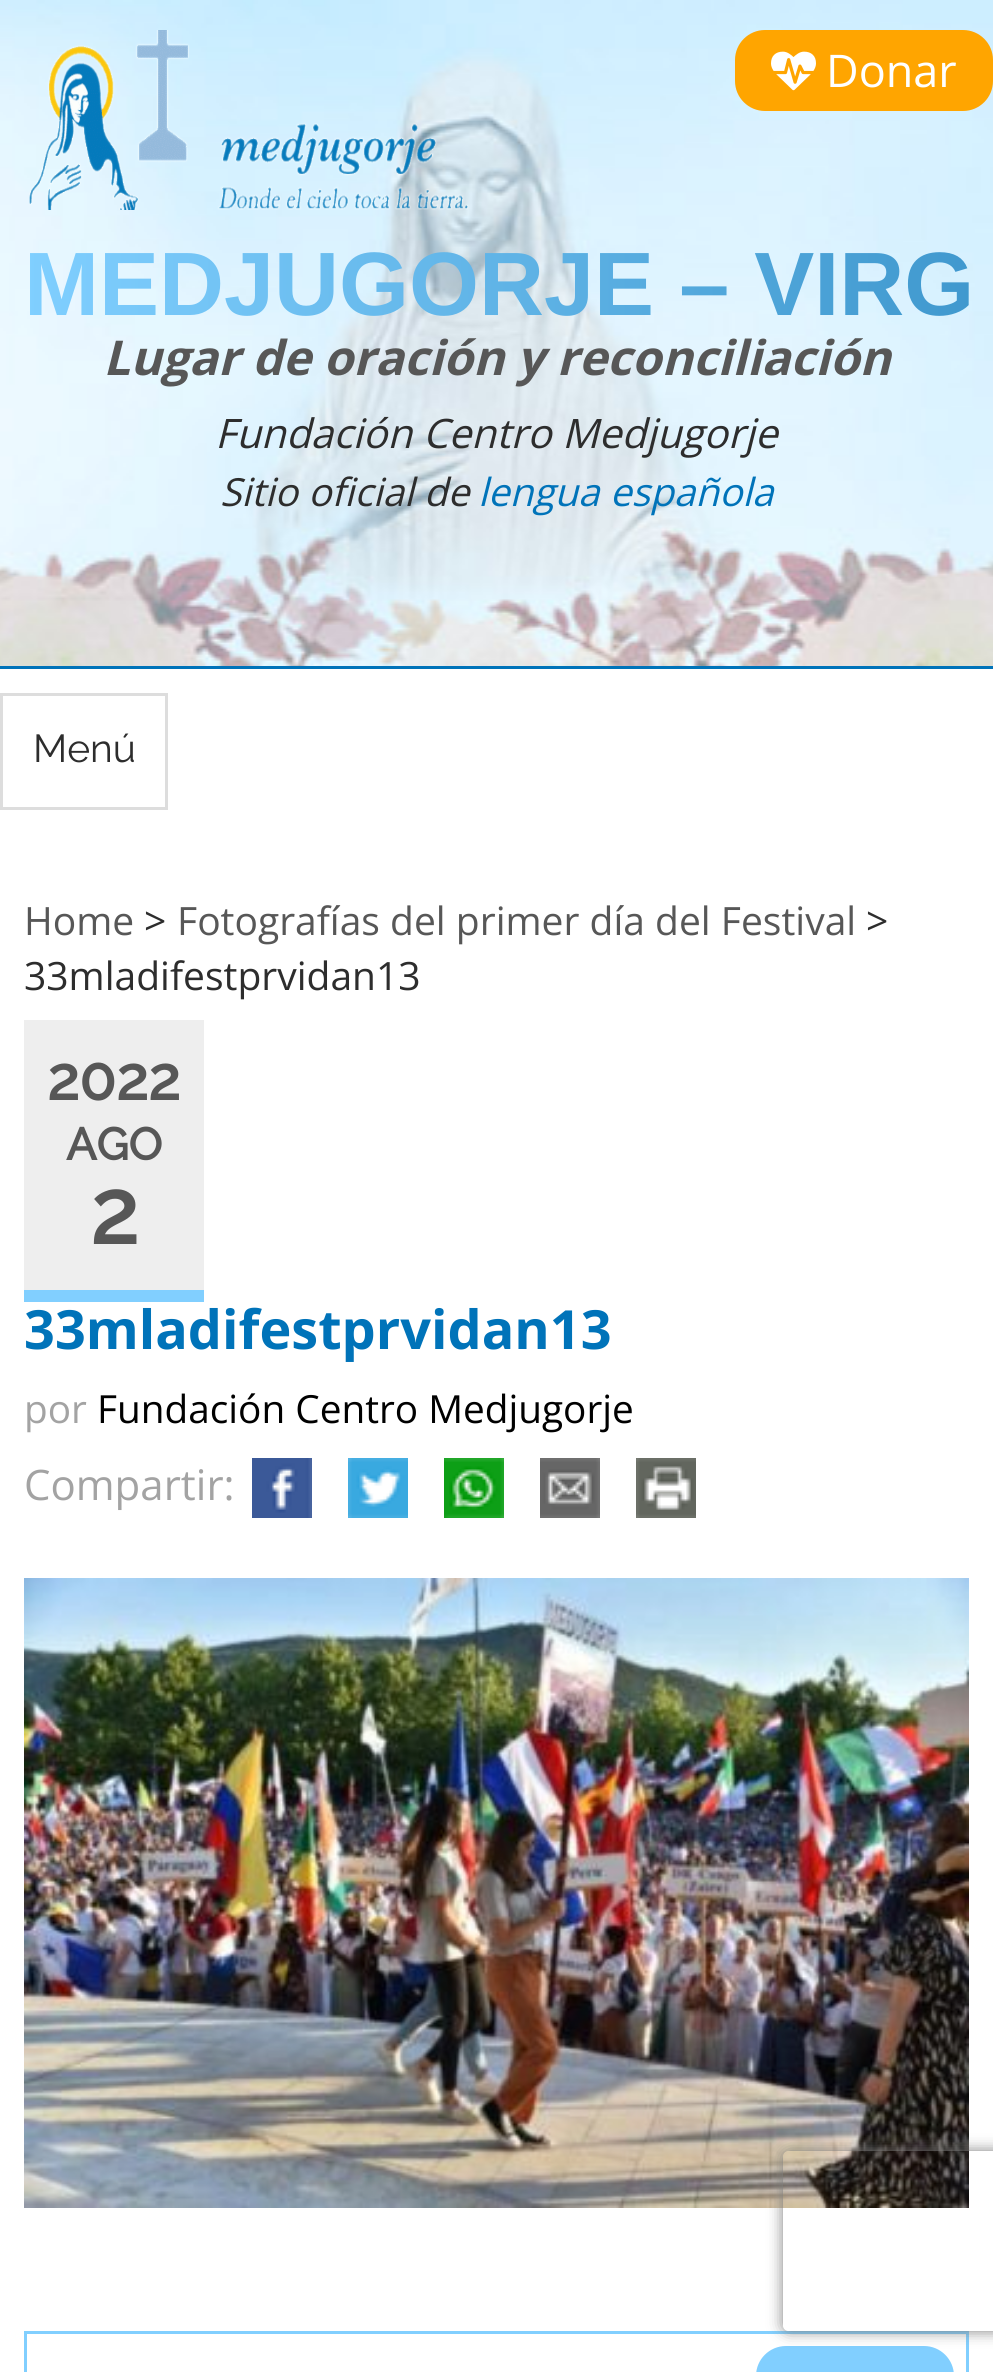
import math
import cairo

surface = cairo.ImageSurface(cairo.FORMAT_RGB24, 993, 2372)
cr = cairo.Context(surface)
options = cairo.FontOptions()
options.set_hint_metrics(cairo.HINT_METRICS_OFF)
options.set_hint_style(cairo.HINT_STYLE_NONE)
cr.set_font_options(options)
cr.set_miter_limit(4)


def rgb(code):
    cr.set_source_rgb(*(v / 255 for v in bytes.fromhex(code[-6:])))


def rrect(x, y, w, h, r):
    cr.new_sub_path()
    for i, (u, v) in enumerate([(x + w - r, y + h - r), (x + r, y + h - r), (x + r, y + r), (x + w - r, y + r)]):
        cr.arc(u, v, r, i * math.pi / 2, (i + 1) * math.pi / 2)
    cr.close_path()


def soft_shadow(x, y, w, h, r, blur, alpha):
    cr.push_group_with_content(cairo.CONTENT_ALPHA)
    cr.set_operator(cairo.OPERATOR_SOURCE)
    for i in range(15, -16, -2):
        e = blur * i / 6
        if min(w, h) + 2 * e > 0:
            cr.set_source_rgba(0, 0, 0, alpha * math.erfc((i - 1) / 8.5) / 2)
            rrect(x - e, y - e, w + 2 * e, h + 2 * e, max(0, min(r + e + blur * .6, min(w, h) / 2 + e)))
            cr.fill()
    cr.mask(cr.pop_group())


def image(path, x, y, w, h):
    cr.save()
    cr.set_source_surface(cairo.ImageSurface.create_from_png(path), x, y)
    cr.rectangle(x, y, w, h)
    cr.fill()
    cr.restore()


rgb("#ffffff")
cr.paint()
image("img/1.png", 0, 0, 993, 666)
rgb("#0073b9")
cr.rectangle(0, 666, 993, 3)
cr.fill()
image("img/2.png", 29, 30, 440, 180)
rgb("#ffa500")
rrect(735, 30, 258, 81, 30)
cr.fill()
image("img/3.png", 771, 51, 45, 40)
cr.rectangle(1.5, 694.5, 165, 114)
rgb("#dddddd")
cr.set_line_width(3)
cr.stroke()
rgb("#eeeeee")
cr.rectangle(24, 1020, 180, 270)
cr.fill()
rgb("#81cfff")
cr.rectangle(24, 1290, 180, 12)
cr.fill()
image("img/4.png", 252, 1458, 60, 60)
image("img/5.png", 348, 1458, 60, 60)
image("img/6.png", 444, 1458, 60, 60)
image("img/7.png", 540, 1458, 60, 60)
image("img/8.png", 636, 1458, 60, 60)
image("img/9.png", 24, 1578, 945, 630)
cr.rectangle(25.5, 2332.5, 942, 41)
cr.stroke()
rrect(757.5, 2347.5, 195, 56, 28.5)
cr.fill_preserve()
cr.stroke()
cr.save()
cr.set_fill_rule(cairo.FILL_RULE_EVEN_ODD)
cr.new_path()
cr.move_to(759, 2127)
cr.line_to(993, 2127)
cr.line_to(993, 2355)
cr.line_to(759, 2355)
cr.close_path()
cr.move_to(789, 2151)
cr.line_to(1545, 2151)
cr.curve_to(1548.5, 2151, 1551, 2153.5, 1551, 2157)
cr.line_to(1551, 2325)
cr.curve_to(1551, 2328.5, 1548.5, 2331, 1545, 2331)
cr.line_to(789, 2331)
cr.curve_to(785.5, 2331, 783, 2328.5, 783, 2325)
cr.line_to(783, 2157)
cr.curve_to(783, 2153.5, 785.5, 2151, 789, 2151)
cr.close_path()
cr.clip()
rgb("#808080")
soft_shadow(783, 2151, 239, 180, 6, 7.5, 1)
cr.restore()
cr.select_font_face("Open Sans")
cr.set_font_size(45)
rgb("#ffffff")
cr.move_to(826, 87)
cr.show_text("Donar")
cr.select_font_face("Liberation Sans", cairo.FONT_SLANT_NORMAL, cairo.FONT_WEIGHT_BOLD)
cr.set_font_size(90)
gradient = cairo.LinearGradient(24, 284, 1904, 283)
gradient.add_color_stop_rgba(0, 0.502, 0.812, 1, 1)
gradient.add_color_stop_rgba(1, 0.004, 0.388, 0.62, 1)
cr.set_source(gradient)
cr.move_to(24, 315)
cr.show_text("MEDJUGORJE – VIRG")
cr.select_font_face("Open Sans", cairo.FONT_SLANT_ITALIC, cairo.FONT_WEIGHT_BOLD)
cr.set_font_size(48)
rgb("#575757")
cr.move_to(103, 375)
cr.show_text("Lugar de oración y reconciliación")
cr.select_font_face("Open Sans", cairo.FONT_SLANT_ITALIC)
cr.set_font_size(40.6)
rgb("#2d2d2d")
cr.move_to(215, 448)
cr.show_text("Fundación Centro Medjugorje")
cr.set_font_size(38.75)
cr.move_to(220, 506)
cr.show_text("Sitio oficial de")
rgb("#0073b9")
cr.move_to(478, 506)
cr.show_text("lengua española")
cr.select_font_face("Raleway")
cr.set_font_size(39)
rgb("#2d2d2d")
cr.move_to(33, 762)
cr.show_text("Menú")
cr.select_font_face("Open Sans")
rgb("#575757")
cr.move_to(24, 935)
cr.show_text("Home")
rgb("#2d2d2d")
cr.move_to(144, 935)
cr.show_text(">")
rgb("#575757")
cr.move_to(177, 935)
cr.show_text("Fotografías del primer día del Festival")
rgb("#2d2d2d")
cr.move_to(866, 935)
cr.show_text(">")
cr.move_to(24, 990)
cr.show_text("33mladifestprvidan13")
cr.select_font_face("Raleway", cairo.FONT_SLANT_NORMAL, cairo.FONT_WEIGHT_BOLD)
cr.set_font_size(60)
rgb("#575757")
cr.move_to(47, 1100)
cr.show_text("2022")
cr.set_font_size(45)
cr.move_to(66, 1160)
cr.show_text("AGO")
cr.set_font_size(90)
cr.move_to(90, 1244)
cr.show_text("2")
cr.select_font_face("Open Sans", cairo.FONT_SLANT_NORMAL, cairo.FONT_WEIGHT_BOLD)
cr.set_font_size(54)
rgb("#0073b9")
cr.move_to(24, 1349)
cr.show_text("33mladifestprvidan13")
cr.select_font_face("Open Sans")
cr.set_font_size(38.75)
rgb("#a3a3a3")
cr.move_to(24, 1423)
cr.show_text("por")
rgb("#000000")
cr.move_to(97, 1423)
cr.show_text("Fundación Centro Medjugorje")
cr.set_font_size(42)
rgb("#a3a3a3")
cr.move_to(24, 1500)
cr.show_text("Compartir:")
surface.write_to_png("page.png")
